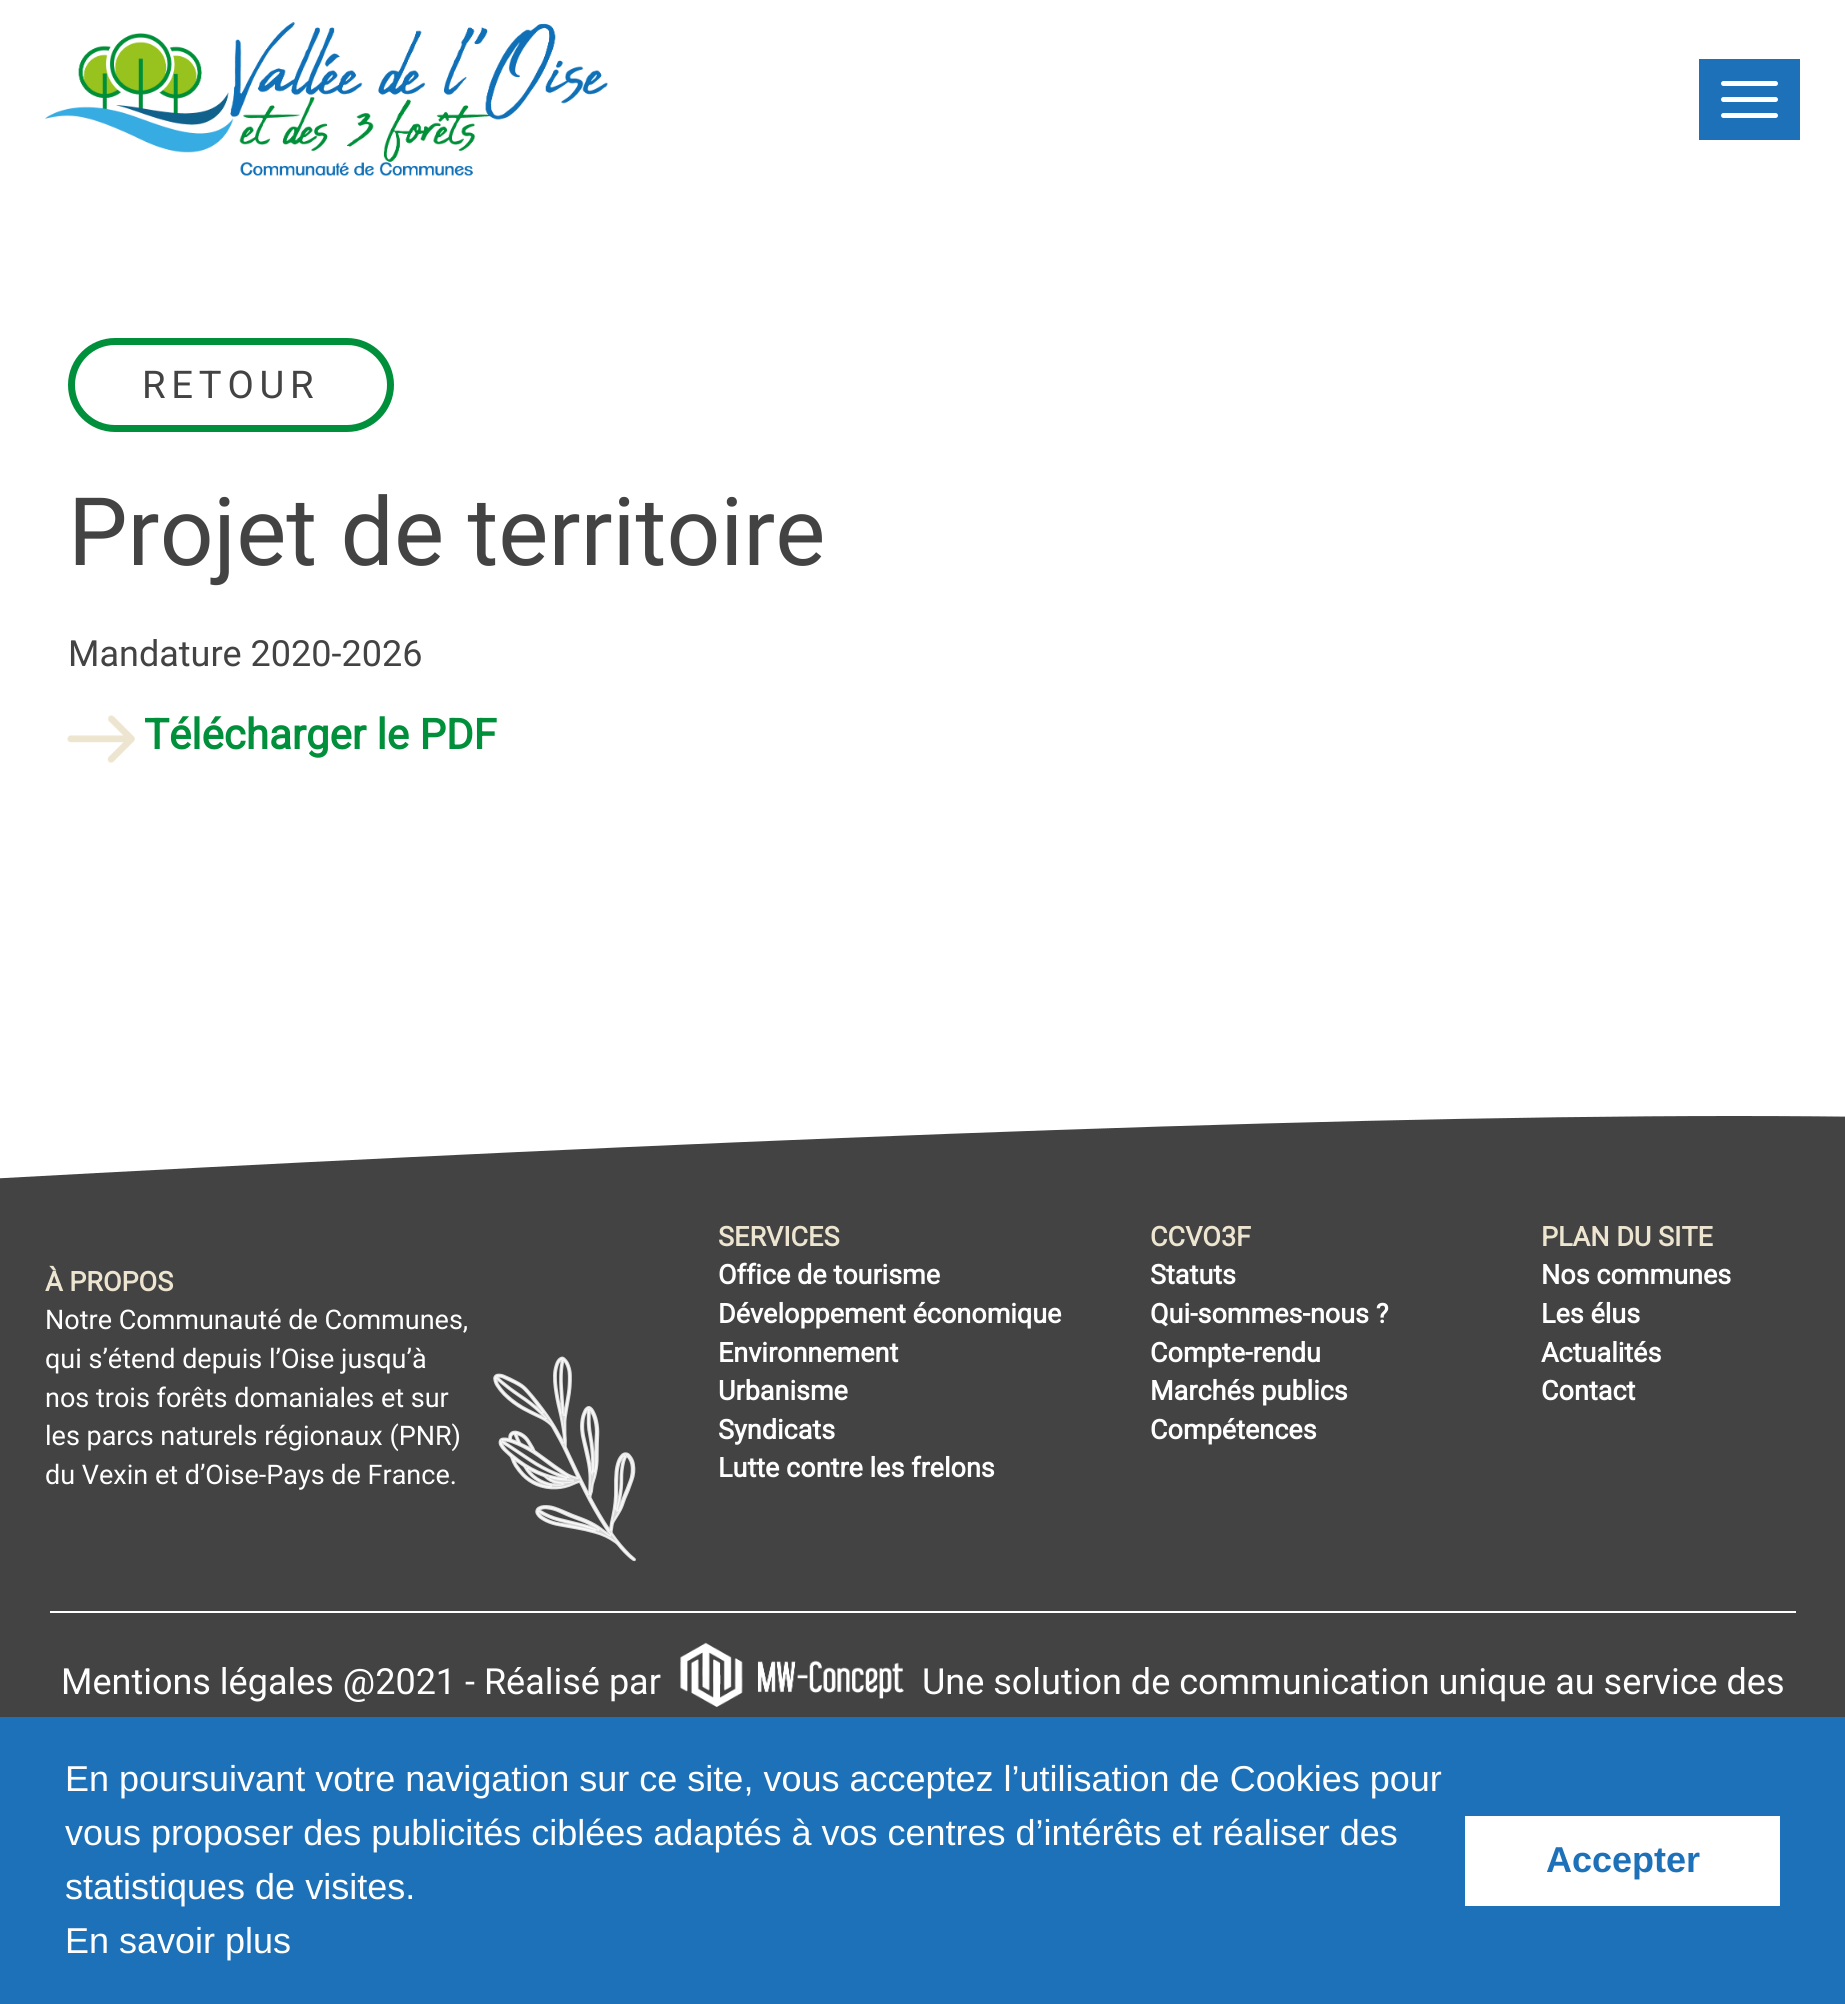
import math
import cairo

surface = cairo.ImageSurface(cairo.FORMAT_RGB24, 1845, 2004)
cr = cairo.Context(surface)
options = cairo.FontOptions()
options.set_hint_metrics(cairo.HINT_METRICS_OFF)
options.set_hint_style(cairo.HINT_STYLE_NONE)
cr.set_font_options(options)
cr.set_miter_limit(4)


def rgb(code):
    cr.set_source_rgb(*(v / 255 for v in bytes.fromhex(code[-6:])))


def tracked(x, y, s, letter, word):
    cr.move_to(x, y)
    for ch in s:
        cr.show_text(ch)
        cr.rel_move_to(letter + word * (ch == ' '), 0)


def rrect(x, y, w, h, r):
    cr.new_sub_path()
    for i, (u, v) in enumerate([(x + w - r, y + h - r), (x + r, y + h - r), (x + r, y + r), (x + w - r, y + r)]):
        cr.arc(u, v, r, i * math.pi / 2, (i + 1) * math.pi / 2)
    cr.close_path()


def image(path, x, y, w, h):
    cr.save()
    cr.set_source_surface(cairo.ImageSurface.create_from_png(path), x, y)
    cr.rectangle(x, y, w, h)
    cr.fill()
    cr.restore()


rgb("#ffffff")
cr.paint()
image("img/1.png", 45, 22, 563, 154)
rgb("#1d71b8")
cr.rectangle(1699, 59, 101, 81)
cr.fill()
rgb("#ffffff")
rrect(1721, 81, 57, 5, 2.5)
cr.fill()
rrect(1721, 97, 57, 5, 2.5)
cr.fill()
rrect(1721, 113, 57, 5, 2.5)
cr.fill()
rrect(71.5, 341.5, 319, 87, 43.5)
rgb("#008f3a")
cr.set_line_width(7)
cr.stroke()
image("img/2.png", 67, 715, 68, 48)
rgb("#434343")
cr.new_path()
cr.move_to(-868, 1230)
cr.curve_to(-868, 1230, 838, 1116, 1734, 1116)
cr.curve_to(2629, 1116, 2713, 1230, 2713, 1230)
cr.line_to(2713, 1609)
cr.line_to(-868, 1609)
cr.close_path()
cr.fill()
image("img/3.png", 493, 1356, 143, 206)
cr.rectangle(0, 1609, 1845, 108)
cr.fill()
rgb("#ffffff")
cr.rectangle(50, 1611, 1746, 2)
cr.fill()
image("img/4.png", 680, 1642, 224, 65)
rgb("#1d71b8")
cr.rectangle(0, 1717, 1845, 287)
cr.fill()
rgb("#ffffff")
cr.rectangle(1465, 1816, 315, 90)
cr.fill()
cr.select_font_face("Roboto")
cr.set_font_size(38.25)
rgb("#434343")
tracked(142, 398, "RETOUR", 5.75, 0)
cr.set_font_size(94.5)
cr.move_to(68, 565)
cr.show_text("Projet de territoire")
cr.set_font_size(36)
cr.move_to(68, 666)
cr.show_text("Mandature 2020-2026")
cr.select_font_face("Roboto", cairo.FONT_SLANT_NORMAL, cairo.FONT_WEIGHT_BOLD)
cr.set_font_size(42)
rgb("#008f3a")
cr.move_to(144, 749)
cr.show_text("Télécharger le PDF")
cr.set_font_size(27)
rgb("#ede5d0")
cr.move_to(45, 1291)
cr.show_text("À PROPOS")
cr.select_font_face("Roboto")
rgb("#ffffff")
for x, y, s in [
    (45, 1329, "Notre Communauté de Communes,"),
    (45, 1368, "qui s’étend depuis l’Oise jusqu’à"),
    (45, 1407, "nos trois forêts domaniales et sur"),
    (45, 1445, "les parcs naturels régionaux (PNR)"),
    (45, 1484, "du Vexin et d’Oise-Pays de France."),
]:
    cr.move_to(x, y)
    cr.show_text(s)
cr.select_font_face("Roboto", cairo.FONT_SLANT_NORMAL, cairo.FONT_WEIGHT_BOLD)
rgb("#ede5d0")
cr.move_to(718, 1246)
cr.show_text("SERVICES")
rgb("#ffffff")
for x, y, s in [
    (718, 1284, "Office de tourisme"),
    (718, 1323, "Développement économique"),
    (718, 1362, "Environnement"),
    (718, 1400, "Urbanisme"),
    (718, 1439, "Syndicats"),
    (718, 1477, "Lutte contre les frelons"),
]:
    cr.move_to(x, y)
    cr.show_text(s)
rgb("#ede5d0")
cr.move_to(1150, 1246)
cr.show_text("CCVO3F")
rgb("#ffffff")
for x, y, s in [
    (1150, 1284, "Statuts"),
    (1150, 1323, "Qui-sommes-nous ?"),
    (1150, 1362, "Compte-rendu"),
    (1150, 1400, "Marchés publics"),
    (1150, 1439, "Compétences"),
]:
    cr.move_to(x, y)
    cr.show_text(s)
rgb("#ede5d0")
cr.move_to(1541, 1246)
cr.show_text("PLAN DU SITE")
rgb("#ffffff")
for x, y, s in [
    (1541, 1284, "Nos communes"),
    (1541, 1323, "Les élus"),
    (1541, 1362, "Actualités"),
    (1541, 1400, "Contact"),
]:
    cr.move_to(x, y)
    cr.show_text(s)
cr.select_font_face("Roboto")
cr.set_font_size(36)
cr.move_to(61, 1694)
cr.show_text("Mentions légales @2021 - Réalisé par")
cr.move_to(922, 1694)
cr.show_text("Une solution de communication unique au service des")
cr.select_font_face("Liberation Sans")
for x, y, s in [
    (65, 1791, "En poursuivant votre navigation sur ce site, vous acceptez l’utilisation de Cookies pour"),
    (65, 1845, "vous proposer des publicités ciblées adaptés à vos centres d’intérêts et réaliser des"),
    (65, 1899, "statistiques de visites."),
    (65, 1953, "En savoir plus"),
]:
    cr.move_to(x, y)
    cr.show_text(s)
cr.select_font_face("Liberation Sans", cairo.FONT_SLANT_NORMAL, cairo.FONT_WEIGHT_BOLD)
rgb("#1d71b8")
cr.move_to(1546, 1872)
cr.show_text("Accepter")
surface.write_to_png("page.png")
